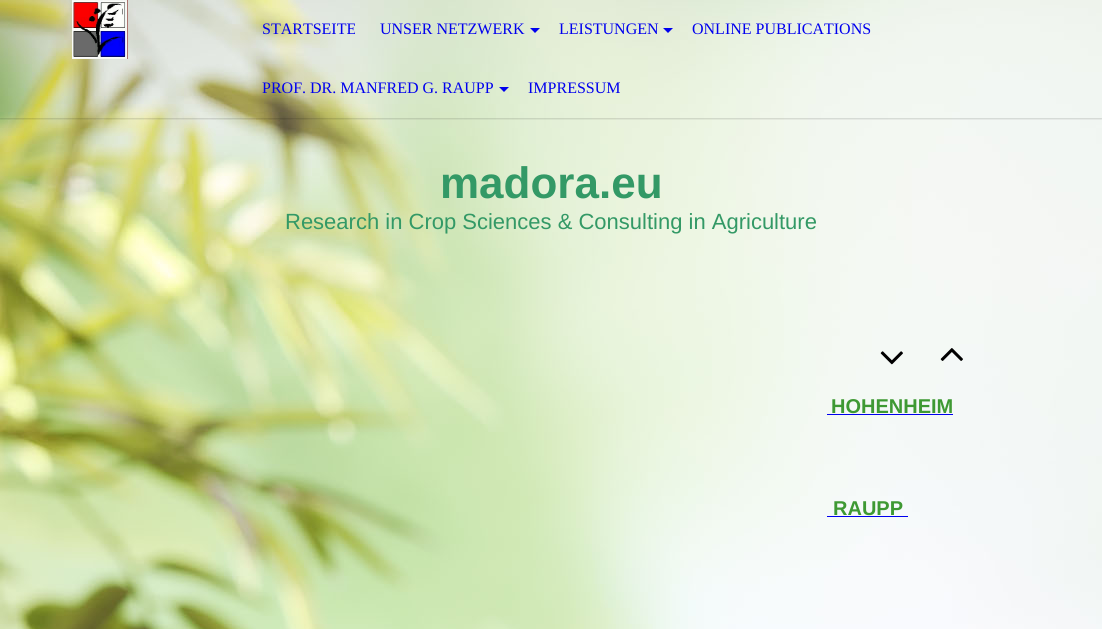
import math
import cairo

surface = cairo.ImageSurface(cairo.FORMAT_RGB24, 1102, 629)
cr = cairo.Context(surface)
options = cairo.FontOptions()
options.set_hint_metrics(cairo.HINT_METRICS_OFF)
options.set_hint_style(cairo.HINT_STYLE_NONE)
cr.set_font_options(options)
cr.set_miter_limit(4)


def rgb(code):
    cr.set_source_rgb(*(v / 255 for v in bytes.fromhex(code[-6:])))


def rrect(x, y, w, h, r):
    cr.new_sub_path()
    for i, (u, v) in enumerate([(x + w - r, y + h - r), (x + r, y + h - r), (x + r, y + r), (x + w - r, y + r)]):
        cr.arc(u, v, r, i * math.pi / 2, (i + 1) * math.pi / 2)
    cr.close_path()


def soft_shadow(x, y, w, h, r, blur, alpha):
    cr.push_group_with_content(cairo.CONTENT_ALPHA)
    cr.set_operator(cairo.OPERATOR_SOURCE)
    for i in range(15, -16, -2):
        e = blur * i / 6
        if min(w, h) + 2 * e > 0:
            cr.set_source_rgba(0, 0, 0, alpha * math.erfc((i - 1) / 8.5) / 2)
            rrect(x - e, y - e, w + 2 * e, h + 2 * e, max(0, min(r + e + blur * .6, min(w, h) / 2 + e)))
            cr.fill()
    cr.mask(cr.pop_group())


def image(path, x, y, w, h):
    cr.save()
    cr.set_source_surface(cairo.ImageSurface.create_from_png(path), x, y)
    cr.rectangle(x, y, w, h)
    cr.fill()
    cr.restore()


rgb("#ffffff")
cr.paint()
image("img/1.png", 0, 0, 1102, 629)
cr.save()
cr.rectangle(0, 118, 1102, 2)
cr.clip()
rgb("#000000")
soft_shadow(0, 0, 1102, 118, 0, 1.5, 0.3)
cr.restore()
image("img/2.png", 72, 0, 56, 59)
rgb("#0000ee")
cr.new_path()
cr.move_to(530, 28)
cr.line_to(540, 28)
cr.line_to(535, 33)
cr.close_path()
cr.fill()
cr.new_path()
cr.move_to(663, 28)
cr.line_to(673, 28)
cr.line_to(668, 33)
cr.close_path()
cr.fill()
cr.new_path()
cr.move_to(499, 87)
cr.line_to(509, 87)
cr.line_to(504, 92)
cr.close_path()
cr.fill()
image("img/3.png", 880, 351, 23, 14)
image("img/4.png", 940, 348, 23, 13)
cr.rectangle(827, 414, 126, 1)
cr.fill()
cr.rectangle(827, 516, 81, 1)
cr.fill()
cr.select_font_face("Liberation Serif")
cr.set_font_size(16)
for x, y, s in [
    (262, 34, "STARTSEITE"),
    (380, 34, "UNSER NETZWERK"),
    (559, 34, "LEISTUNGEN"),
    (692, 34, "ONLINE PUBLICATIONS"),
    (262, 93, "PROF. DR. MANFRED G. RAUPP"),
    (528, 93, "IMPRESSUM"),
]:
    cr.move_to(x, y)
    cr.show_text(s)
cr.select_font_face("Liberation Sans", cairo.FONT_SLANT_NORMAL, cairo.FONT_WEIGHT_BOLD)
cr.set_font_size(44)
rgb("#339966")
cr.move_to(440, 198)
cr.show_text("madora.eu")
cr.select_font_face("Liberation Sans")
cr.set_font_size(22)
cr.move_to(285, 229)
cr.show_text("Research in Crop Sciences & Consulting in Agriculture")
cr.select_font_face("Liberation Sans", cairo.FONT_SLANT_NORMAL, cairo.FONT_WEIGHT_BOLD)
cr.set_font_size(20)
rgb("#3e9933")
cr.move_to(831, 413)
cr.show_text("HOHENHEIM")
cr.move_to(833, 515)
cr.show_text("RAUPP")
surface.write_to_png("page.png")
